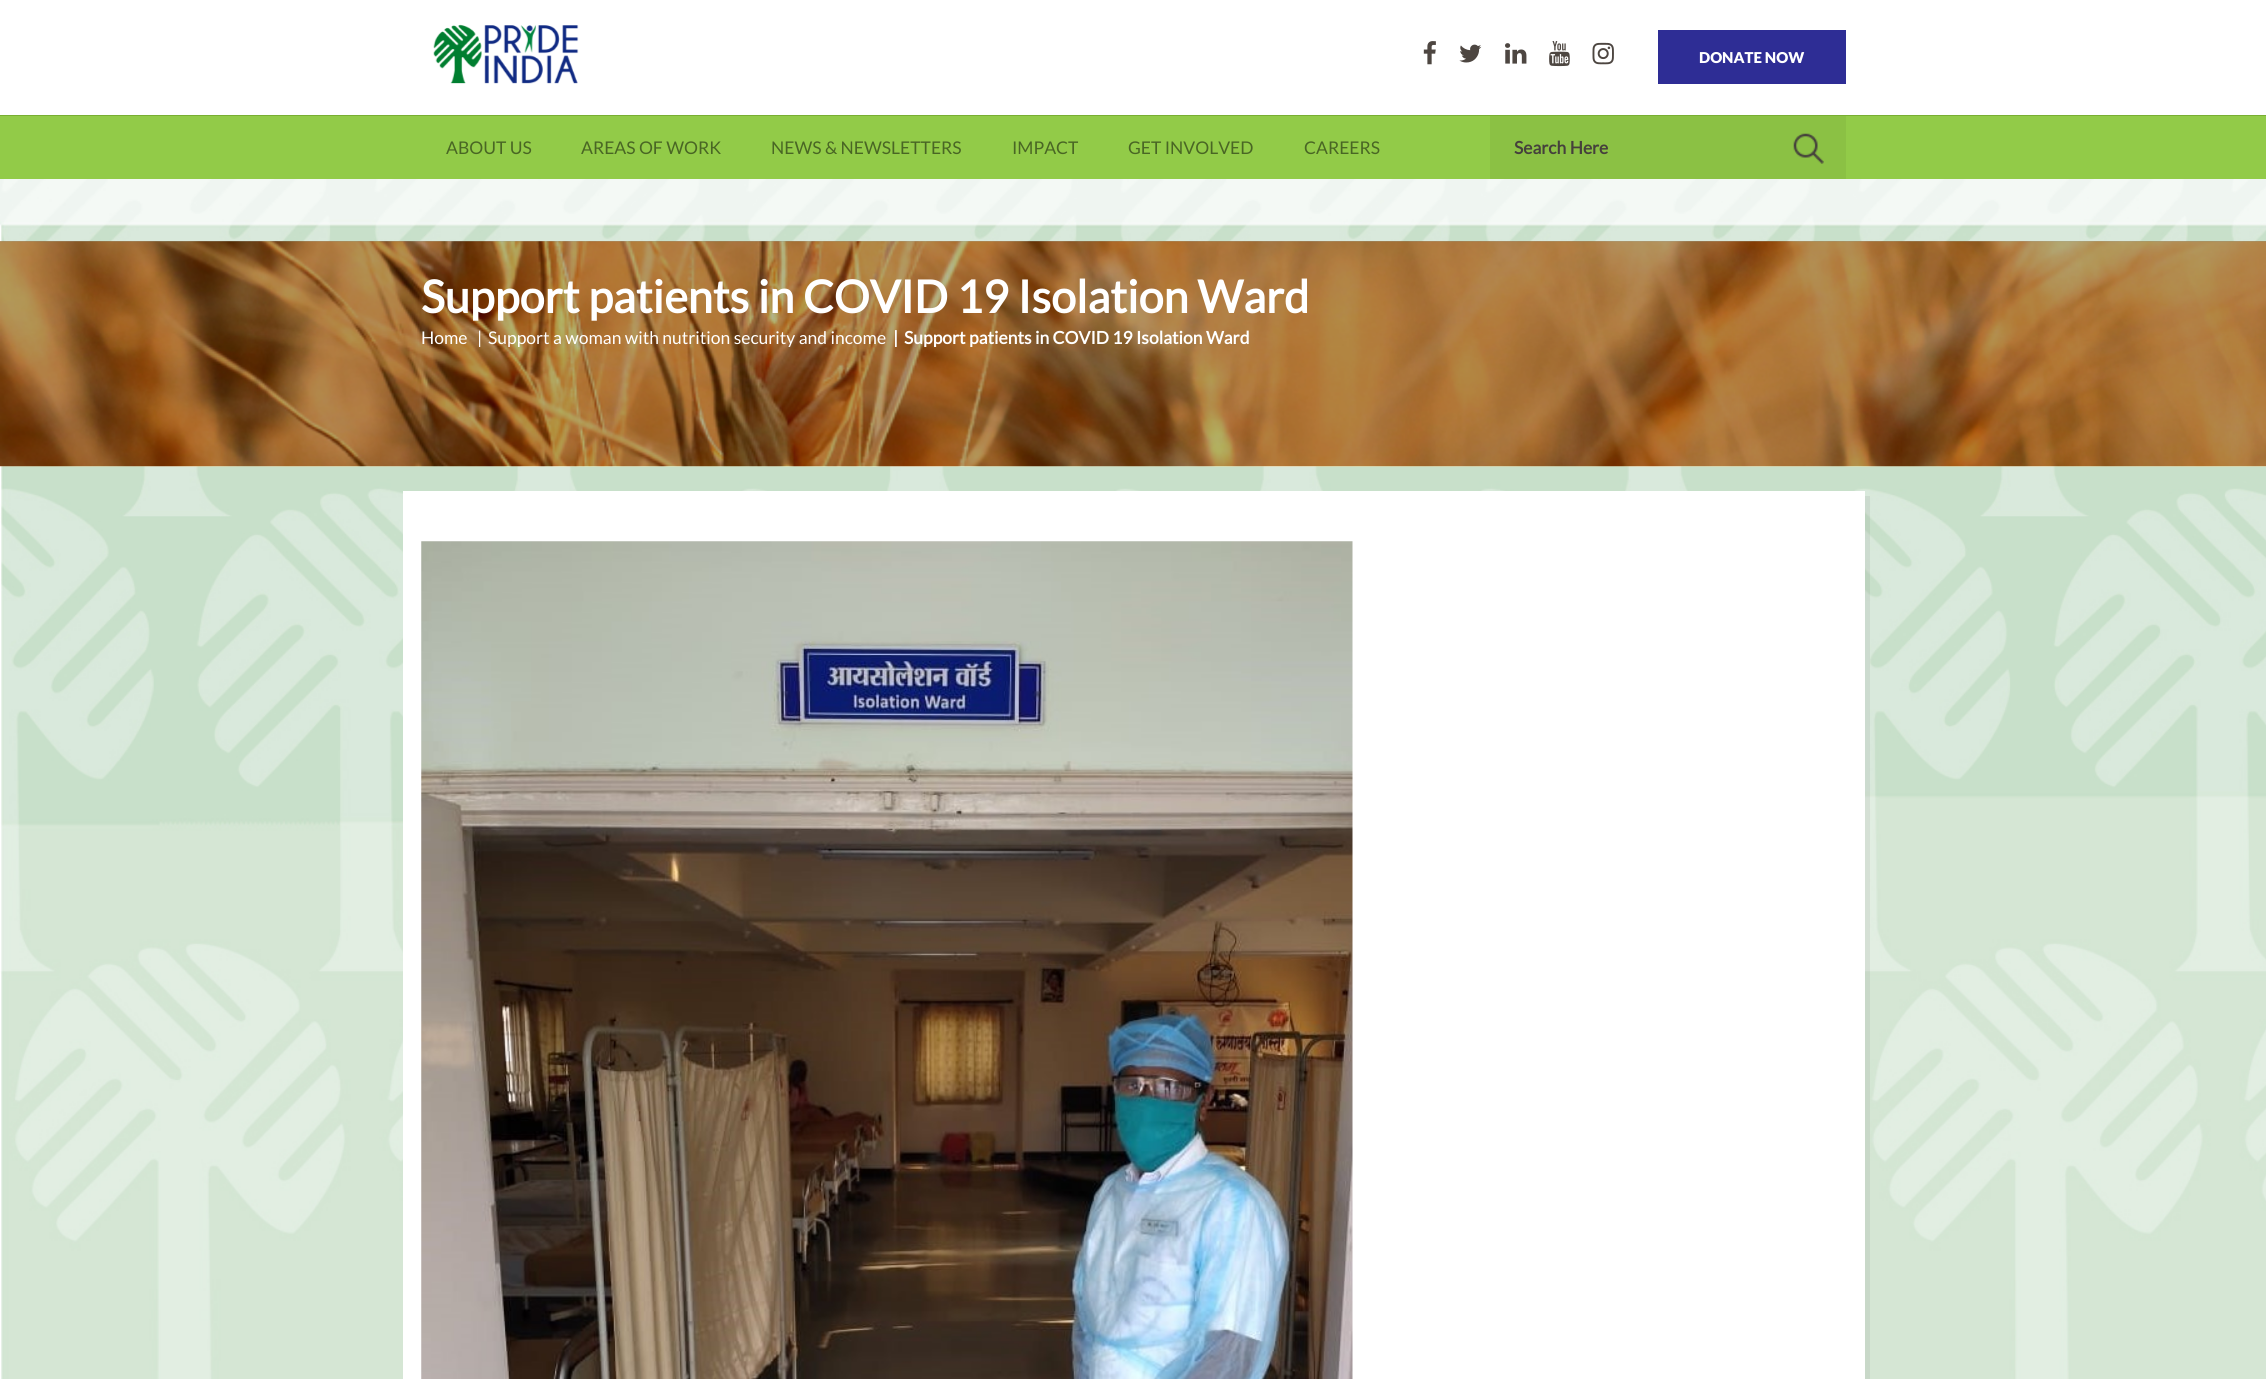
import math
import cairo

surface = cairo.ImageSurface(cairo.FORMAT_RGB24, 2266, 1379)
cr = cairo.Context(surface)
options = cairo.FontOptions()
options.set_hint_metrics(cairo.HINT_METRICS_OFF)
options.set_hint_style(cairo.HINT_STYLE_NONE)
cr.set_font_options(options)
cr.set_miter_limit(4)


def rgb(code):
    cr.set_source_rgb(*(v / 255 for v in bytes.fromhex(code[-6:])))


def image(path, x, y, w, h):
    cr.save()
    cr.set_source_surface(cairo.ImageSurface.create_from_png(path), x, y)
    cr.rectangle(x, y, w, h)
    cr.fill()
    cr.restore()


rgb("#ffffff")
cr.paint()
image("img/1.png", 0, 179, 2266, 1200)
image("img/2.png", 433, 24, 146, 60)
image("img/3.png", 1423, 41, 13, 24)
image("img/4.png", 1459, 44, 23, 19)
image("img/5.png", 1505, 43, 22, 21)
image("img/6.png", 1549, 41, 21, 26)
image("img/7.png", 1592, 42, 22, 23)
for x, y, w, h, color in [
    (1658, 30, 188, 54, "#2e2d95"),
    (0, 116, 2266, 63, "#92cb48"),
    (0, 115, 2266, 1, "#78ae32"),
    (1490, 116, 356, 63, "#8bc144"),
]:
    rgb(color)
    cr.rectangle(x, y, w, h)
    cr.fill()
image("img/8.png", 1793, 133, 31, 31)
image("img/9.png", 0, 241, 2266, 226)
cr.set_source_rgba(0, 0, 0, 0.3)
cr.rectangle(0, 241, 2266, 225)
cr.fill()
cr.set_source_rgba(0, 0, 0, 0.06)
cr.new_path()
cr.move_to(408, 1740)
cr.line_to(408, 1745)
cr.line_to(1870, 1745)
cr.line_to(1870, 496)
cr.line_to(1865, 496)
cr.line_to(1865, 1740)
cr.close_path()
cr.fill()
rgb("#ffffff")
cr.rectangle(403, 491, 1462, 888)
cr.fill()
image("img/10.png", 421, 541, 932, 838)
cr.select_font_face("Lato Black")
cr.set_font_size(15)
cr.move_to(1699, 63)
cr.show_text("DONATE NOW")
cr.select_font_face("Lato")
cr.set_font_size(17.5)
rgb("#496624")
for x, y, s in [
    (446, 154, "ABOUT US"),
    (581, 154, "AREAS OF WORK"),
    (771, 154, "NEWS & NEWSLETTERS"),
    (1012, 154, "IMPACT"),
    (1128, 154, "GET INVOLVED"),
    (1304, 154, "CAREERS"),
]:
    cr.move_to(x, y)
    cr.show_text(s)
cr.select_font_face("Lato", cairo.FONT_SLANT_NORMAL, cairo.FONT_WEIGHT_BOLD)
rgb("#45403c")
cr.move_to(1514, 154)
cr.show_text("Search Here")
cr.set_font_size(45)
rgb("#ffffff")
cr.move_to(421, 313)
cr.show_text("Support patients in COVID 19 Isolation Ward")
cr.select_font_face("Lato")
cr.set_font_size(17.5)
for x, y, s in [
    (421, 344, "Home"),
    (477, 344, "|"),
    (488, 344, "Support a woman with nutrition security and income"),
]:
    cr.move_to(x, y)
    cr.show_text(s)
cr.select_font_face("Lato", cairo.FONT_SLANT_NORMAL, cairo.FONT_WEIGHT_BOLD)
cr.move_to(893, 344)
cr.show_text("|")
cr.move_to(904, 344)
cr.show_text("Support patients in COVID 19 Isolation Ward")
surface.write_to_png("page.png")
